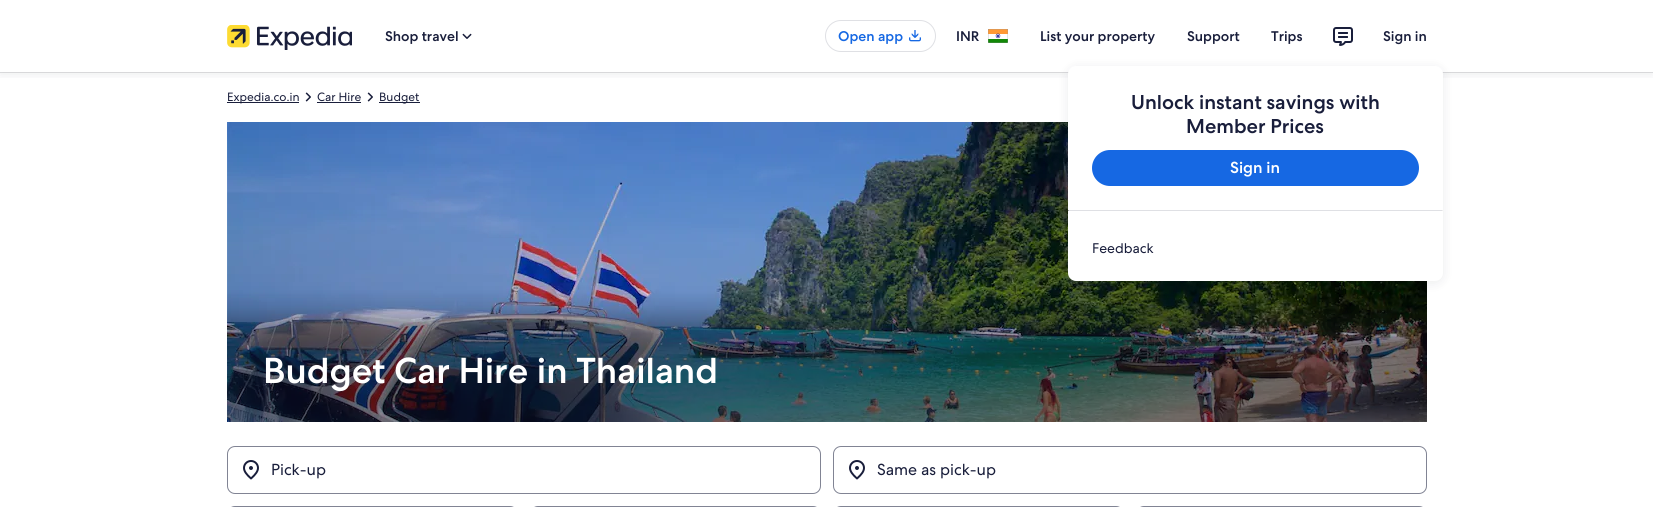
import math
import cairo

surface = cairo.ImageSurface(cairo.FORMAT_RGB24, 1653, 507)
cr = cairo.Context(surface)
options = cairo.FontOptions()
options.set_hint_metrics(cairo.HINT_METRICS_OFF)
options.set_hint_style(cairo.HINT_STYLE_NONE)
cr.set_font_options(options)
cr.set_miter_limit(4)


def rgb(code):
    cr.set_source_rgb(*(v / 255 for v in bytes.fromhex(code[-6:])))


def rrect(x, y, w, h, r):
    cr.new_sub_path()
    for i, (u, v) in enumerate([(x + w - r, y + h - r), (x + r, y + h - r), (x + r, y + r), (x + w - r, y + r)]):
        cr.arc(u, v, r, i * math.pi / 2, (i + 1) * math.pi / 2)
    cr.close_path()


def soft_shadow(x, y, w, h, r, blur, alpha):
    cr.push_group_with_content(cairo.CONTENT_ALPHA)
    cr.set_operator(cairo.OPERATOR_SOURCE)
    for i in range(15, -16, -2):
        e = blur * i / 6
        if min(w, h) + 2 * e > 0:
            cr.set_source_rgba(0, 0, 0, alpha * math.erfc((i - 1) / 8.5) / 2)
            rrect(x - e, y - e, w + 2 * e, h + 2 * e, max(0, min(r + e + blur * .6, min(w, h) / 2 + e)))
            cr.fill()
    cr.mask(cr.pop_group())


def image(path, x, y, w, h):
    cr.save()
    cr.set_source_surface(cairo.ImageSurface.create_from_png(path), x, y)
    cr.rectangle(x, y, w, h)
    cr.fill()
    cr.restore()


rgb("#ffffff")
cr.paint()
rgb("#e2e2e4")
cr.rectangle(0, 72, 1653, 1)
cr.fill()
image("img/6.png", 305, 92, 6, 10)
image("img/6.png", 367, 92, 6, 10)
cr.save()
cr.rectangle(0, 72, 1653, 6)
cr.clip()
rgb("#0c0e1c")
soft_shadow(0, 2, 1653, 72, 0, 6, 0.08)
cr.restore()
image("img/1.png", 227, 25, 125, 25)
image("img/2.png", 462, 33, 10, 6)
rrect(825.5, 20.5, 110, 31, 15.5)
rgb("#dfe0e4")
cr.set_line_width(1)
cr.stroke()
image("img/3.png", 909, 30, 12, 12)
image("img/4.png", 988, 29, 20, 14)
image("img/5.png", 1333, 27, 20, 19)
image("img/7.png", 227, 122, 1200, 300)
rgb("#0c0e1c")
soft_shadow(1068, 68, 375, 215, 8, 6, 0.08)
rgb("#ffffff")
rrect(1068, 66, 375, 215, 8)
cr.fill()
rgb("#1668e3")
rrect(1092, 150, 327, 36, 18)
cr.fill()
for x, y, w, h, color in [
    (1068, 210, 375, 1, "#dfe0e4"),
    (1442, 210, 1, 1, "#eeeeee"),
    (1068, 210, 1, 1, "#9f9f9f"),
    (227, 102, 72, 1, "#191e3b"),
    (317, 102, 44, 1, "#191e3b"),
    (379, 102, 41, 1, "#191e3b"),
]:
    rgb(color)
    cr.rectangle(x, y, w, h)
    cr.fill()
rrect(227.5, 446.5, 593, 47, 7.5)
rgb("#818494")
cr.stroke()
image("img/8.png", 243, 460, 16, 20)
rrect(833.5, 446.5, 593, 47, 7.5)
cr.stroke()
image("img/8.png", 849, 460, 16, 20)
rrect(227.5, 506.5, 290, 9, 7.5)
cr.stroke()
rrect(530.5, 506.5, 290, 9, 7.5)
cr.stroke()
rrect(833.5, 506.5, 290, 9, 7.5)
cr.stroke()
rrect(1136.5, 506.5, 290, 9, 7.5)
cr.stroke()
cr.select_font_face("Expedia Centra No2 Medium")
cr.set_font_size(14)
rgb("#191e3b")
cr.move_to(385, 41)
cr.show_text("Shop travel")
rgb("#1668e3")
cr.move_to(838, 41)
cr.show_text("Open app")
rgb("#191e3b")
for x, y, s in [
    (956, 41, "INR"),
    (1040, 41, "List your property"),
    (1383, 41, "Sign in"),
]:
    cr.move_to(x, y)
    cr.show_text(s)
cr.set_font_size(20)
cr.move_to(1131, 109)
cr.show_text("Unlock instant savings with")
cr.move_to(1186, 133)
cr.show_text("Member Prices")
cr.set_font_size(16)
rgb("#ffffff")
cr.move_to(1230, 173)
cr.show_text("Sign in")
cr.select_font_face("Expedia Centra No2")
cr.set_font_size(14)
rgb("#191e3b")
cr.move_to(1092, 253)
cr.show_text("Feedback")
cr.select_font_face("Expedia Centra No2 Medium")
cr.move_to(1187, 41)
cr.show_text("Support")
cr.move_to(1271, 41)
cr.show_text("Trips")
cr.select_font_face("Expedia Centra No2")
cr.set_font_size(12)
for x, y, s in [
    (227, 101, "Expedia.co.in"),
    (317, 101, "Car Hire"),
    (379, 101, "Budget"),
]:
    cr.move_to(x, y)
    cr.show_text(s)
cr.select_font_face("Expedia Centra No2 Medium")
cr.set_font_size(36)
rgb("#ffffff")
cr.move_to(263, 383)
cr.show_text("Budget Car Hire in Thailand")
cr.select_font_face("Expedia Centra No2")
cr.set_font_size(16)
rgb("#191e3b")
cr.move_to(271, 475)
cr.show_text("Pick-up")
cr.move_to(877, 475)
cr.show_text("Same as pick-up")
surface.write_to_png("page.png")
